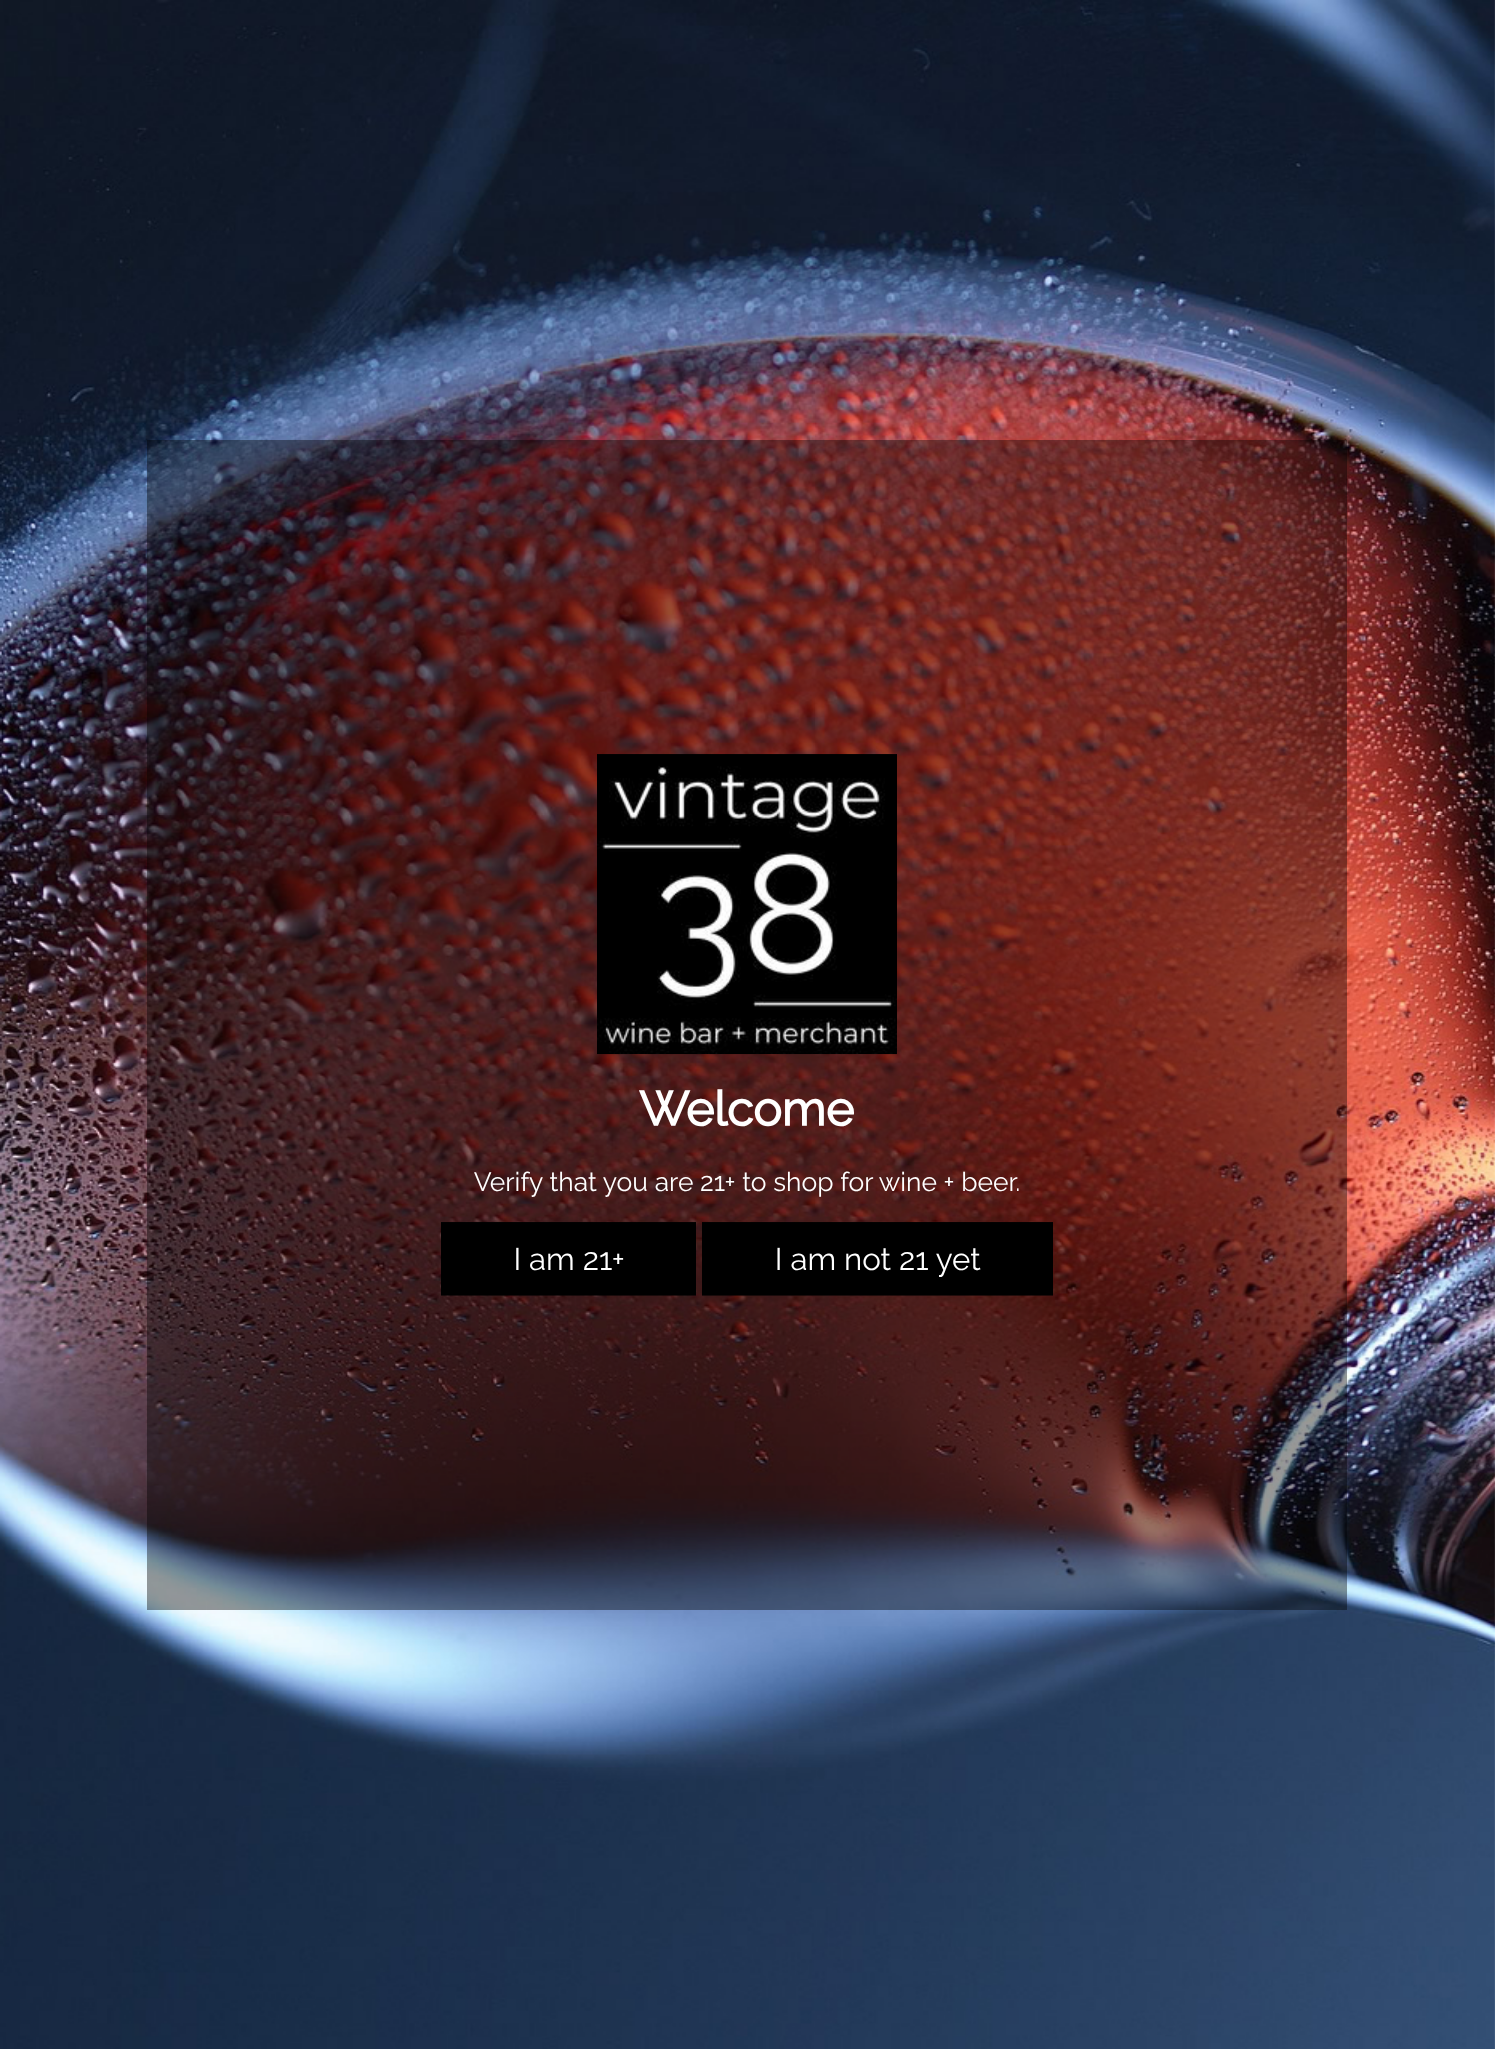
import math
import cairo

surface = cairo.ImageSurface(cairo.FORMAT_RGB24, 1495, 2049)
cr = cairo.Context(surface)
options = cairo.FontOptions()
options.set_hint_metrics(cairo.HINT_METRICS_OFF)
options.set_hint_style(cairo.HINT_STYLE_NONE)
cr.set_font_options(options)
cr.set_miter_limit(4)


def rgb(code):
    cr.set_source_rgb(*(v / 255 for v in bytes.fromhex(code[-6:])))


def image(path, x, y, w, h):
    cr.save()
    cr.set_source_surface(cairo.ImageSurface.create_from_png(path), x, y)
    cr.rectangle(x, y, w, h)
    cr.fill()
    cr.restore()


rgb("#ffffff")
cr.paint()
image("img/1.png", 0, 0, 1495, 2049)
image("img/2.png", 147, 440, 1200, 1170)
surface.write_to_png("page.png")
